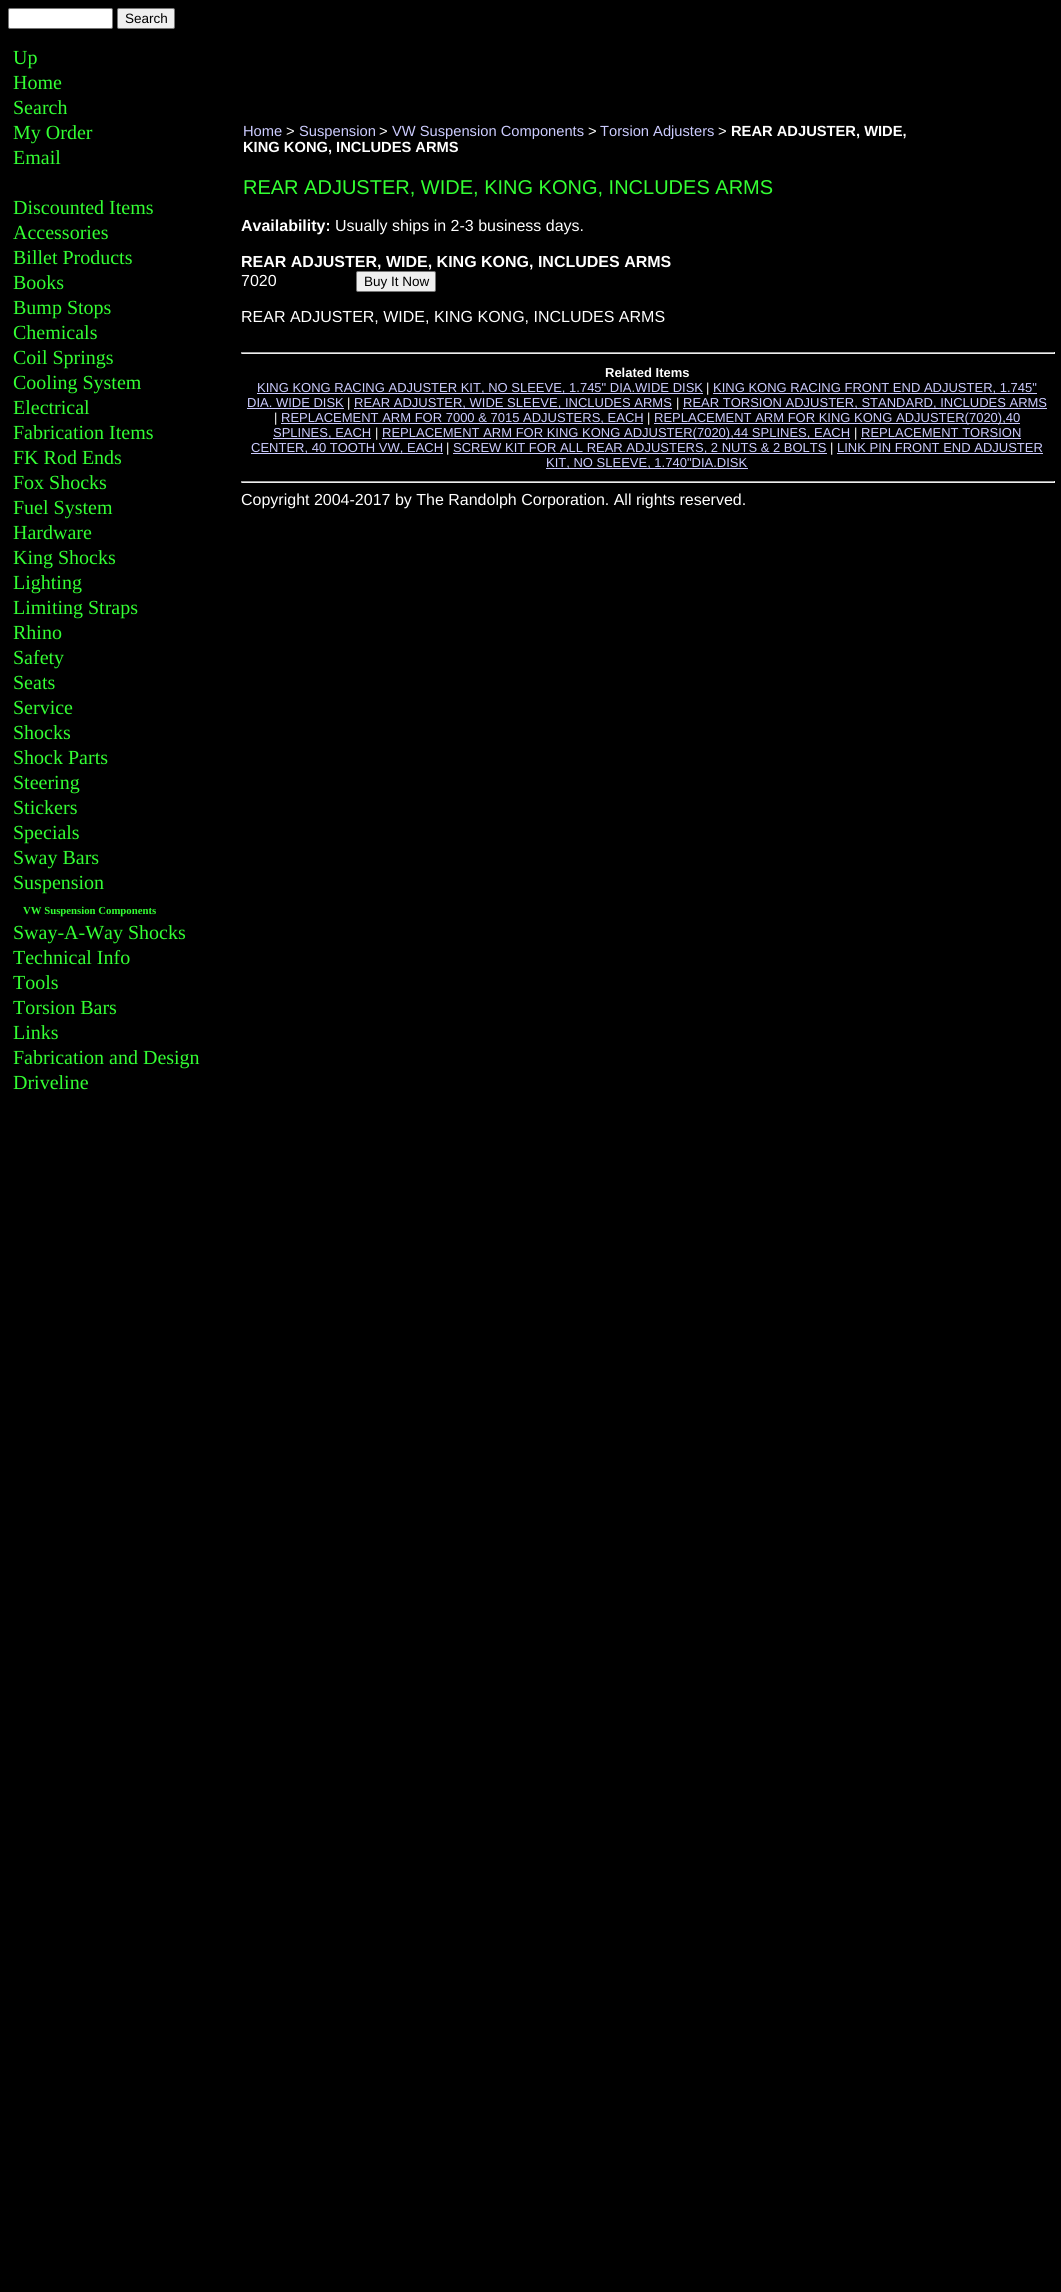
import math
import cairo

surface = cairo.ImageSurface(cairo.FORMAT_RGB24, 1061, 2292)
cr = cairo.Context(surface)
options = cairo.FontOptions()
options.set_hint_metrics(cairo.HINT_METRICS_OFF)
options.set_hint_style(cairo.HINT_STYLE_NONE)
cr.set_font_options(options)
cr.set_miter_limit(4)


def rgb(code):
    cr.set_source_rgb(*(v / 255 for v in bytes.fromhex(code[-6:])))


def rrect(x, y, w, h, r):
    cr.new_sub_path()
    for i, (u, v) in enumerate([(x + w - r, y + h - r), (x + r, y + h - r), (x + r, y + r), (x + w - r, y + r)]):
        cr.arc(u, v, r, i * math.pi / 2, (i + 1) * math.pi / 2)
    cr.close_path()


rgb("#000000")
cr.paint()
rgb("#ffffff")
rrect(8.5, 8.5, 104, 20, 1.5)
cr.fill_preserve()
rgb("#767676")
cr.set_line_width(1)
cr.stroke()
rgb("#efefef")
rrect(117.5, 8.5, 57, 20, 1.5)
cr.fill_preserve()
rgb("#767676")
cr.stroke()
rgb("#efefef")
rrect(356.5, 271.5, 79, 20, 1.5)
cr.fill_preserve()
rgb("#767676")
cr.stroke()
for x, y, w, h, color in [
    (241, 352, 814, 1, "#9f9f9f"),
    (1054, 352, 1, 2, "#eeeeee"),
    (241, 353, 814, 1, "#eeeeee"),
    (241, 352, 1, 2, "#9f9f9f"),
    (257, 393, 446, 1, "#ccccff"),
    (713, 393, 324, 1, "#ccccff"),
    (247, 408, 97, 1, "#ccccff"),
    (354, 408, 318, 1, "#ccccff"),
    (683, 408, 364, 1, "#ccccff"),
    (281, 423, 362, 1, "#ccccff"),
    (654, 423, 366, 1, "#ccccff"),
    (273, 438, 98, 1, "#ccccff"),
    (382, 438, 468, 1, "#ccccff"),
    (861, 438, 160, 1, "#ccccff"),
    (251, 453, 192, 1, "#ccccff"),
    (453, 453, 374, 1, "#ccccff"),
    (837, 453, 206, 1, "#ccccff"),
    (546, 468, 202, 1, "#ccccff"),
    (241, 481, 814, 1, "#9f9f9f"),
    (1054, 481, 1, 2, "#eeeeee"),
    (241, 482, 814, 1, "#eeeeee"),
    (241, 481, 1, 2, "#9f9f9f"),
]:
    rgb(color)
    cr.rectangle(x, y, w, h)
    cr.fill()
cr.select_font_face("Liberation Sans")
cr.set_font_size(13.5)
rgb("#000000")
cr.move_to(125, 23)
cr.show_text("Search")
cr.select_font_face("Liberation Serif")
cr.set_font_size(20)
rgb("#33ff33")
for x, y, s in [
    (13, 64, "Up"),
    (13, 89, "Home"),
    (13, 114, "Search"),
    (13, 139, "My Order"),
    (13, 164, "Email"),
    (13, 214, "Discounted Items"),
    (13, 239, "Accessories"),
    (13, 264, "Billet Products"),
    (13, 289, "Books"),
    (13, 314, "Bump Stops"),
    (13, 339, "Chemicals"),
    (13, 364, "Coil Springs"),
    (13, 389, "Cooling System"),
    (13, 414, "Electrical"),
    (13, 439, "Fabrication Items"),
    (13, 464, "FK Rod Ends"),
    (13, 489, "Fox Shocks"),
    (13, 514, "Fuel System"),
    (13, 539, "Hardware"),
    (13, 564, "King Shocks"),
    (13, 589, "Lighting"),
    (13, 614, "Limiting Straps"),
    (13, 639, "Rhino"),
    (13, 664, "Safety"),
    (13, 689, "Seats"),
    (13, 714, "Service"),
    (13, 739, "Shocks"),
    (13, 764, "Shock Parts"),
    (13, 789, "Steering"),
    (13, 814, "Stickers"),
    (13, 839, "Specials"),
    (13, 864, "Sway Bars"),
    (13, 889, "Suspension"),
]:
    cr.move_to(x, y)
    cr.show_text(s)
cr.select_font_face("Liberation Serif", cairo.FONT_SLANT_NORMAL, cairo.FONT_WEIGHT_BOLD)
cr.set_font_size(10.75)
cr.move_to(23, 914)
cr.show_text("VW Suspension Components")
cr.select_font_face("Liberation Serif")
cr.set_font_size(20)
for x, y, s in [
    (13, 939, "Sway-A-Way Shocks"),
    (13, 964, "Technical Info"),
    (13, 989, "Tools"),
    (13, 1014, "Torsion Bars"),
    (13, 1039, "Links"),
    (13, 1064, "Fabrication and Design"),
    (13, 1089, "Driveline"),
]:
    cr.move_to(x, y)
    cr.show_text(s)
cr.select_font_face("Liberation Sans")
cr.set_font_size(14.7)
rgb("#ccccff")
cr.move_to(243, 136)
cr.show_text("Home")
rgb("#ffffff")
cr.move_to(286, 136)
cr.show_text(">")
rgb("#ccccff")
cr.move_to(299, 136)
cr.show_text("Suspension")
rgb("#ffffff")
cr.move_to(379, 136)
cr.show_text(">")
rgb("#ccccff")
cr.move_to(392, 136)
cr.show_text("VW Suspension Components")
rgb("#ffffff")
cr.move_to(588, 136)
cr.show_text(">")
rgb("#ccccff")
cr.move_to(600, 136)
cr.show_text("Torsion Adjusters")
rgb("#ffffff")
cr.move_to(718, 136)
cr.show_text(">")
cr.select_font_face("Liberation Sans", cairo.FONT_SLANT_NORMAL, cairo.FONT_WEIGHT_BOLD)
cr.move_to(731, 136)
cr.show_text("REAR ADJUSTER, WIDE,")
cr.move_to(243, 152)
cr.show_text("KING KONG, INCLUDES ARMS")
cr.select_font_face("Liberation Sans")
cr.set_font_size(20)
rgb("#33ff33")
cr.move_to(243, 194)
cr.show_text("REAR ADJUSTER, WIDE, KING KONG, INCLUDES ARMS")
cr.select_font_face("Liberation Sans", cairo.FONT_SLANT_NORMAL, cairo.FONT_WEIGHT_BOLD)
cr.set_font_size(16)
rgb("#ffffff")
cr.move_to(241, 231)
cr.show_text("Availability:")
cr.select_font_face("Liberation Sans")
cr.move_to(335, 231)
cr.show_text("Usually ships in 2-3 business days.")
cr.select_font_face("Liberation Sans", cairo.FONT_SLANT_NORMAL, cairo.FONT_WEIGHT_BOLD)
cr.move_to(241, 267)
cr.show_text("REAR ADJUSTER, WIDE, KING KONG, INCLUDES ARMS")
cr.select_font_face("Liberation Sans")
cr.move_to(241, 286)
cr.show_text("7020")
cr.set_font_size(13.5)
rgb("#000000")
cr.move_to(364, 286)
cr.show_text("Buy It Now")
cr.set_font_size(16)
rgb("#ffffff")
cr.move_to(241, 322)
cr.show_text("REAR ADJUSTER, WIDE, KING KONG, INCLUDES ARMS")
cr.select_font_face("Liberation Sans", cairo.FONT_SLANT_NORMAL, cairo.FONT_WEIGHT_BOLD)
cr.set_font_size(13)
cr.move_to(605, 377)
cr.show_text("Related Items")
cr.select_font_face("Liberation Sans")
rgb("#ccccff")
cr.move_to(257, 392)
cr.show_text("KING KONG RACING ADJUSTER KIT, NO SLEEVE, 1.745\" DIA.WIDE DISK")
rgb("#ffffff")
cr.move_to(706, 392)
cr.show_text("|")
rgb("#ccccff")
cr.move_to(713, 392)
cr.show_text("KING KONG RACING FRONT END ADJUSTER, 1.745\"")
cr.move_to(247, 407)
cr.show_text("DIA. WIDE DISK")
rgb("#ffffff")
cr.move_to(347, 407)
cr.show_text("|")
rgb("#ccccff")
cr.move_to(354, 407)
cr.show_text("REAR ADJUSTER, WIDE SLEEVE, INCLUDES ARMS")
rgb("#ffffff")
cr.move_to(676, 407)
cr.show_text("|")
rgb("#ccccff")
cr.move_to(683, 407)
cr.show_text("REAR TORSION ADJUSTER, STANDARD, INCLUDES ARMS")
rgb("#ffffff")
cr.move_to(274, 422)
cr.show_text("|")
rgb("#ccccff")
cr.move_to(281, 422)
cr.show_text("REPLACEMENT ARM FOR 7000 & 7015 ADJUSTERS, EACH")
rgb("#ffffff")
cr.move_to(647, 422)
cr.show_text("|")
rgb("#ccccff")
cr.move_to(654, 422)
cr.show_text("REPLACEMENT ARM FOR KING KONG ADJUSTER(7020),40")
cr.move_to(273, 437)
cr.show_text("SPLINES, EACH")
rgb("#ffffff")
cr.move_to(375, 437)
cr.show_text("|")
rgb("#ccccff")
cr.move_to(382, 437)
cr.show_text("REPLACEMENT ARM FOR KING KONG ADJUSTER(7020),44 SPLINES, EACH")
rgb("#ffffff")
cr.move_to(854, 437)
cr.show_text("|")
rgb("#ccccff")
cr.move_to(861, 437)
cr.show_text("REPLACEMENT TORSION")
cr.move_to(251, 452)
cr.show_text("CENTER, 40 TOOTH VW, EACH")
rgb("#ffffff")
cr.move_to(446, 452)
cr.show_text("|")
rgb("#ccccff")
cr.move_to(453, 452)
cr.show_text("SCREW KIT FOR ALL REAR ADJUSTERS, 2 NUTS & 2 BOLTS")
rgb("#ffffff")
cr.move_to(830, 452)
cr.show_text("|")
rgb("#ccccff")
cr.move_to(837, 452)
cr.show_text("LINK PIN FRONT END ADJUSTER")
cr.move_to(546, 467)
cr.show_text("KIT, NO SLEEVE, 1.740\"DIA.DISK")
cr.set_font_size(16)
rgb("#ffffff")
cr.move_to(241, 505)
cr.show_text("Copyright 2004-2017 by The Randolph Corporation. All rights reserved.")
surface.write_to_png("page.png")
